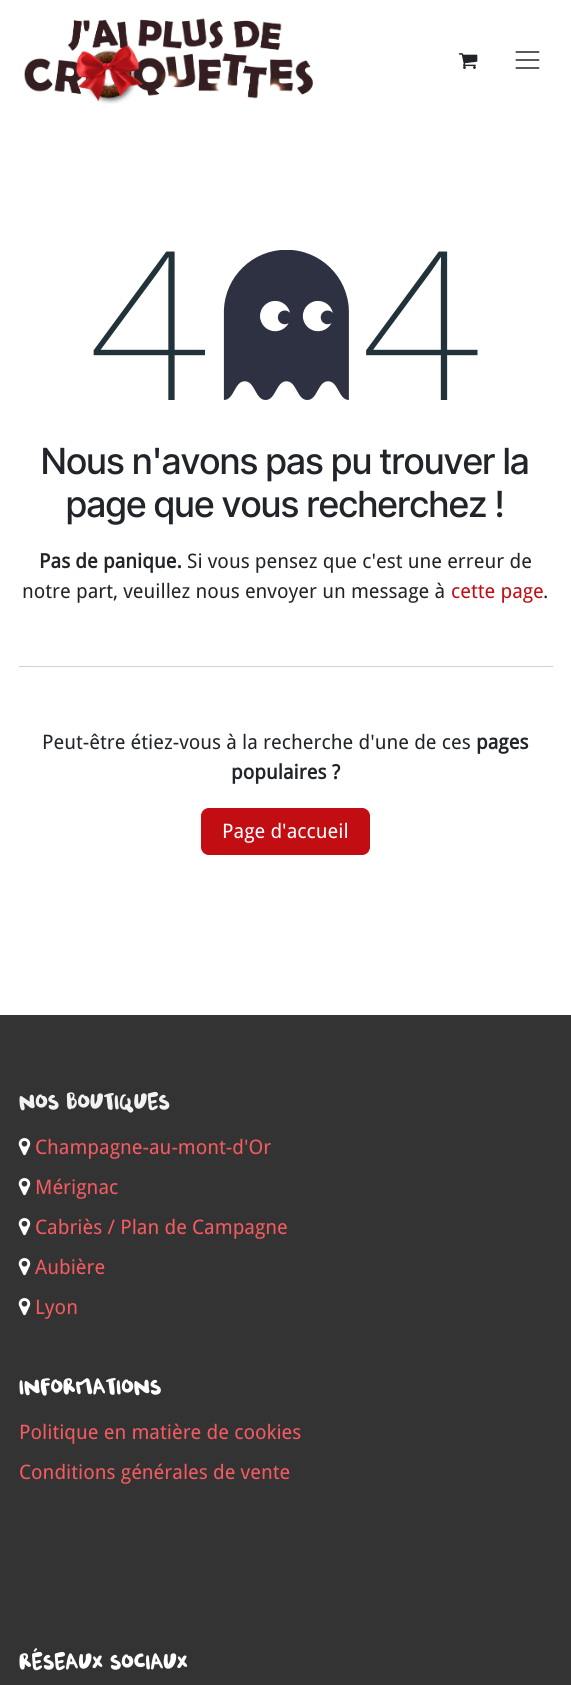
import math
import cairo

surface = cairo.ImageSurface(cairo.FORMAT_RGB24, 571, 1685)
cr = cairo.Context(surface)
options = cairo.FontOptions()
options.set_hint_metrics(cairo.HINT_METRICS_OFF)
options.set_hint_style(cairo.HINT_STYLE_NONE)
cr.set_font_options(options)
cr.set_miter_limit(4)


def rgb(code):
    cr.set_source_rgb(*(v / 255 for v in bytes.fromhex(code[-6:])))


def rrect(x, y, w, h, r):
    cr.new_sub_path()
    for i, (u, v) in enumerate([(x + w - r, y + h - r), (x + r, y + h - r), (x + r, y + r), (x + w - r, y + r)]):
        cr.arc(u, v, r, i * math.pi / 2, (i + 1) * math.pi / 2)
    cr.close_path()


def image(path, x, y, w, h):
    cr.save()
    cr.set_source_surface(cairo.ImageSurface.create_from_png(path), x, y)
    cr.rectangle(x, y, w, h)
    cr.fill()
    cr.restore()


rgb("#ffffff")
cr.paint()
image("img/1.png", 24, 18, 290, 86)
image("img/2.png", 458, 53, 20, 16)
image("img/3.png", 515, 51, 25, 18)
image("img/4.png", 93, 250, 385, 150)
rgb("#ced4da")
cr.rectangle(19, 666, 534, 1)
cr.fill()
rgb("#c20d13")
rrect(201.5, 808.5, 168, 46, 7.5)
cr.fill_preserve()
cr.set_line_width(1)
cr.stroke()
rgb("#333333")
cr.rectangle(0, 1015, 571, 670)
cr.fill()
image("img/5.png", 18, 1138, 13, 18)
image("img/5.png", 18, 1178, 13, 18)
image("img/5.png", 18, 1218, 13, 18)
image("img/5.png", 18, 1258, 13, 18)
image("img/5.png", 18, 1298, 13, 18)
cr.select_font_face("Inter Tight Medium")
cr.set_font_size(36)
rgb("#212529")
cr.move_to(41, 474)
cr.show_text("Nous n'avons pas pu trouver la")
cr.move_to(66, 517)
cr.show_text("page que vous recherchez !")
cr.select_font_face("Droid Sans", cairo.FONT_SLANT_NORMAL, cairo.FONT_WEIGHT_BOLD)
cr.set_font_size(20)
cr.move_to(39, 568)
cr.show_text("Pas de panique.")
cr.select_font_face("Droid Sans")
cr.move_to(187, 568)
cr.show_text("Si vous pensez que c'est une erreur de")
cr.move_to(22, 598)
cr.show_text("notre part, veuillez nous envoyer un message à")
rgb("#c20d13")
cr.move_to(451, 598)
cr.show_text("cette page")
rgb("#212529")
cr.move_to(543, 598)
cr.show_text(".")
cr.move_to(42, 749)
cr.show_text("Peut-être étiez-vous à la recherche d'une de ces")
cr.select_font_face("Droid Sans", cairo.FONT_SLANT_NORMAL, cairo.FONT_WEIGHT_BOLD)
cr.move_to(476, 749)
cr.show_text("pages")
cr.move_to(231, 779)
cr.show_text("populaires ?")
cr.select_font_face("Droid Sans")
rgb("#ffffff")
cr.move_to(222, 838)
cr.show_text("Page d'accueil")
cr.select_font_face("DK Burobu")
cr.set_font_size(25)
rgb("#f3f2f2")
cr.move_to(19, 1110)
cr.show_text("NOS BOUTIQUES")
cr.select_font_face("Droid Sans")
cr.set_font_size(20)
rgb("#f45b60")
for x, y, s in [
    (35, 1154, "Champagne-au-mont-d'Or"),
    (35, 1194, "Mérignac"),
    (35, 1234, "Cabriès / Plan de Campagne"),
    (35, 1274, "Aubière"),
    (35, 1314, "Lyon"),
]:
    cr.move_to(x, y)
    cr.show_text(s)
cr.select_font_face("DK Burobu")
cr.set_font_size(25)
rgb("#ffffff")
cr.move_to(19, 1395)
cr.show_text("INFORMATIONS")
cr.select_font_face("Droid Sans")
cr.set_font_size(20)
rgb("#f45b60")
cr.move_to(19, 1439)
cr.show_text("Politique en matière de cookies")
cr.move_to(19, 1479)
cr.show_text("Conditions générales de vente")
cr.select_font_face("DK Burobu")
cr.set_font_size(25)
rgb("#ffffff")
cr.move_to(19, 1670)
cr.show_text("RÉSEAUX SOCIAUX")
surface.write_to_png("page.png")
